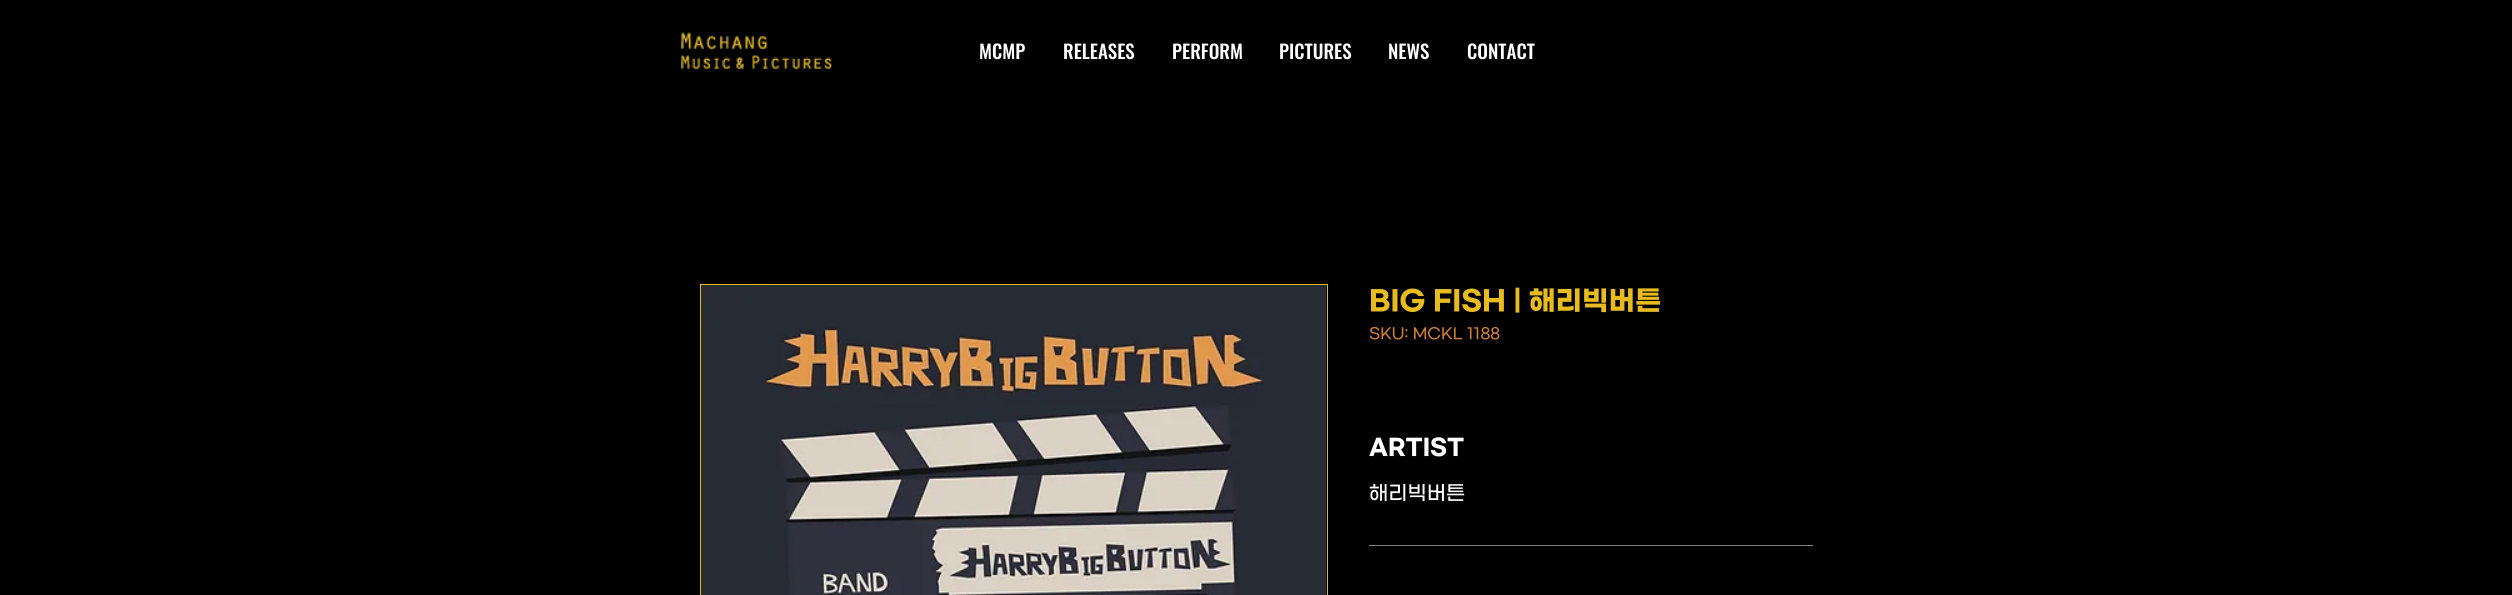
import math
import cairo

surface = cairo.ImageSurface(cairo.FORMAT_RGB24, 2512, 595)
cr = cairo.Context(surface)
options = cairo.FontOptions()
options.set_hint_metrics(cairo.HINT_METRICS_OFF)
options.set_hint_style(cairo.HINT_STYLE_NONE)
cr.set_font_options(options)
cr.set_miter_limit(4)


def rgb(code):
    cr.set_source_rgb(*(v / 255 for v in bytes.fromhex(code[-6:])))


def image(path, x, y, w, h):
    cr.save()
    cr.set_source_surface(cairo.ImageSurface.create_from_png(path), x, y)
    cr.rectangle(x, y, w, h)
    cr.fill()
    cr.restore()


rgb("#000000")
cr.paint()
image("img/1.png", 681, 32, 151, 37)
cr.rectangle(700.5, 284.5, 627, 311)
rgb("#e8bb1f")
cr.set_line_width(1)
cr.stroke()
image("img/2.png", 701, 285, 625, 310)
rgb("#808080")
cr.rectangle(1369, 545, 444, 1)
cr.fill()
cr.select_font_face("Oswald Medium")
cr.set_font_size(19)
rgb("#ffffff")
for x, y, s in [
    (979, 59, "MCMP"),
    (1063, 59, "RELEASES"),
    (1172, 59, "PERFORM"),
    (1279, 59, "PICTURES"),
    (1388, 59, "NEWS"),
    (1467, 59, "CONTACT"),
]:
    cr.move_to(x, y)
    cr.show_text(s)
cr.select_font_face("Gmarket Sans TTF", cairo.FONT_SLANT_NORMAL, cairo.FONT_WEIGHT_BOLD)
cr.set_font_size(27.5)
rgb("#e8bb1f")
cr.move_to(1369, 309)
cr.show_text("BIG FISH | 해리빅버튼")
cr.select_font_face("Gmarket Sans TTF Medium")
cr.set_font_size(15)
rgb("#d28036")
cr.move_to(1369, 338)
cr.show_text("SKU: MCKL 1188")
cr.select_font_face("Gmarket Sans TTF", cairo.FONT_SLANT_NORMAL, cairo.FONT_WEIGHT_BOLD)
cr.set_font_size(22.5)
rgb("#ffffff")
cr.move_to(1369, 454)
cr.show_text("ARTIST")
cr.select_font_face("Gmarket Sans TTF Medium")
cr.set_font_size(20)
cr.move_to(1369, 499)
cr.show_text("해리빅버튼")
surface.write_to_png("page.png")
